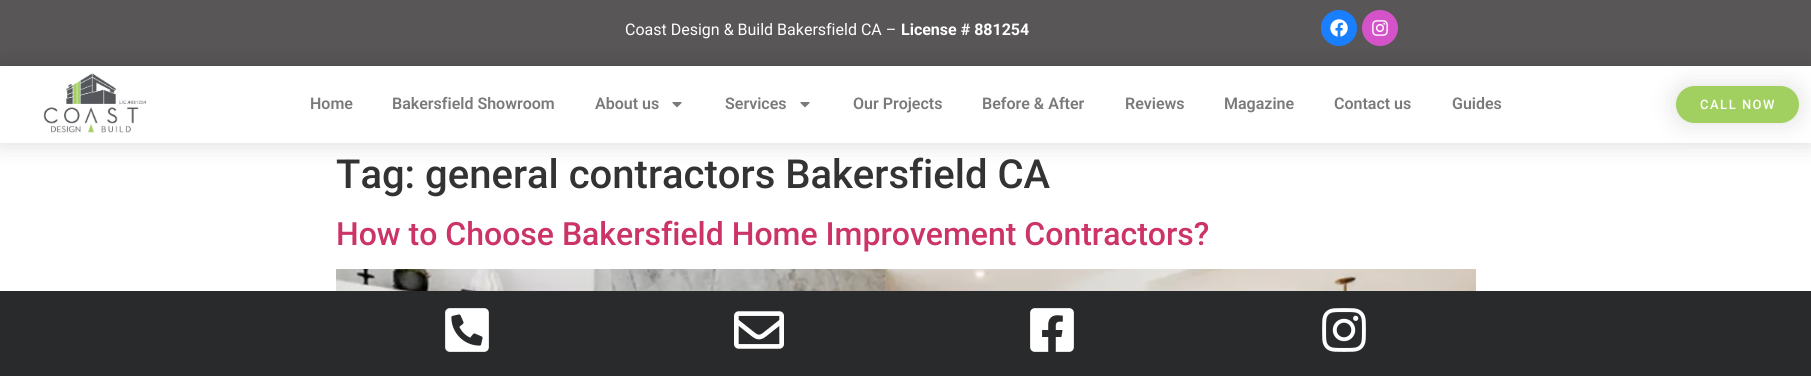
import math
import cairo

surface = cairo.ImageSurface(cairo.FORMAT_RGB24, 1811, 376)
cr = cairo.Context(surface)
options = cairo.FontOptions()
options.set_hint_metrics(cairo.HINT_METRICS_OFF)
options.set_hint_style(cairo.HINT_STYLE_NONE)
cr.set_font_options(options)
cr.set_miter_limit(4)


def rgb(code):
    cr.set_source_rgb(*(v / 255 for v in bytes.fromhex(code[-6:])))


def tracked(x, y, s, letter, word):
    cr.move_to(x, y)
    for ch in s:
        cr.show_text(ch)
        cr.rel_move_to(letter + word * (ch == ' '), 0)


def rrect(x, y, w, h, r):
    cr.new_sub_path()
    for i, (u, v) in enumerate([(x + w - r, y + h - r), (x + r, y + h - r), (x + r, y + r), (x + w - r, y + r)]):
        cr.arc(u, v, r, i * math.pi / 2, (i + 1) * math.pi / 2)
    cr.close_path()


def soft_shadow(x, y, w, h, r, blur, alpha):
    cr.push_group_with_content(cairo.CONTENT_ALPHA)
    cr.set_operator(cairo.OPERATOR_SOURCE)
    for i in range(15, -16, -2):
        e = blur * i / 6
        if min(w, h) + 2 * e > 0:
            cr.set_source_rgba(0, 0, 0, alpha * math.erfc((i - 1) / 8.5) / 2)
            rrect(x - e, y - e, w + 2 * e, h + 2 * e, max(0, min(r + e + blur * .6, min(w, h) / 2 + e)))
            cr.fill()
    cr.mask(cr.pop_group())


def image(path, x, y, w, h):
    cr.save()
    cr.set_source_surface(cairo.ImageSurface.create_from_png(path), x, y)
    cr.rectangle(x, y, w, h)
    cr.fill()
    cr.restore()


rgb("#ffffff")
cr.paint()
rgb("#585656")
cr.rectangle(0, 0, 1811, 66)
cr.fill()
rgb("#1a7fff")
cr.arc(1339, 28, 18, 0, 2 * math.pi)
cr.fill()
image("img/1.png", 1330, 19, 18, 18)
rgb("#d553c8")
cr.arc(1380, 28, 18, 0, 2 * math.pi)
cr.fill()
image("img/2.png", 1372, 20, 16, 16)
cr.save()
cr.set_fill_rule(cairo.FILL_RULE_EVEN_ODD)
cr.new_path()
cr.move_to(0, 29)
cr.line_to(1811, 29)
cr.line_to(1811, 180)
cr.line_to(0, 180)
cr.close_path()
cr.move_to(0, 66)
cr.line_to(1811, 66)
cr.line_to(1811, 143)
cr.line_to(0, 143)
cr.close_path()
cr.clip()
rgb("#000000")
soft_shadow(0, 66, 1811, 77, 0, 12, 0.15)
cr.restore()
image("img/3.png", 43, 73, 104, 60)
image("img/4.png", 672, 102, 10, 6)
image("img/4.png", 800, 102, 10, 6)
rgb("#000000")
soft_shadow(1676, 86, 123, 37, 18.5, 13.5, 0.12)
rgb("#a1d060")
rrect(1676, 86, 123, 37, 18.5)
cr.fill()
image("img/5.png", 336, 269, 1140, 22)
rgb("#282a2c")
cr.rectangle(0, 291, 1811, 85)
cr.fill()
image("img/6.png", 445, 308, 44, 44)
image("img/7.png", 734, 311, 50, 38)
image("img/8.png", 1030, 308, 44, 44)
image("img/9.png", 1322, 308, 44, 44)
cr.select_font_face("Roboto")
cr.set_font_size(16)
rgb("#ffffff")
cr.move_to(625, 35)
cr.show_text("Coast Design & Build Bakersfield CA –")
cr.select_font_face("Roboto", cairo.FONT_SLANT_NORMAL, cairo.FONT_WEIGHT_BOLD)
cr.move_to(901, 35)
cr.show_text("License # 881254")
cr.select_font_face("Roboto SemiBold")
rgb("#7a7a7a")
for x, y, s in [
    (310, 109, "Home"),
    (392, 109, "Bakersfield Showroom"),
    (595, 109, "About us"),
    (725, 109, "Services"),
    (853, 109, "Our Projects"),
    (982, 109, "Before & After"),
    (1125, 109, "Reviews"),
    (1224, 109, "Magazine"),
    (1334, 109, "Contact us"),
    (1452, 109, "Guides"),
]:
    cr.move_to(x, y)
    cr.show_text(s)
cr.select_font_face("Roboto Medium")
cr.set_font_size(13)
rgb("#ffffff")
tracked(1700, 109, "CALL NOW", 1.5, 0)
cr.set_font_size(40)
rgb("#333333")
cr.move_to(336, 188)
cr.show_text("Tag: general contractors Bakersfield CA")
cr.set_font_size(32)
rgb("#cc3366")
cr.move_to(336, 245)
cr.show_text("How to Choose Bakersfield Home Improvement Contractors?")
surface.write_to_png("page.png")
